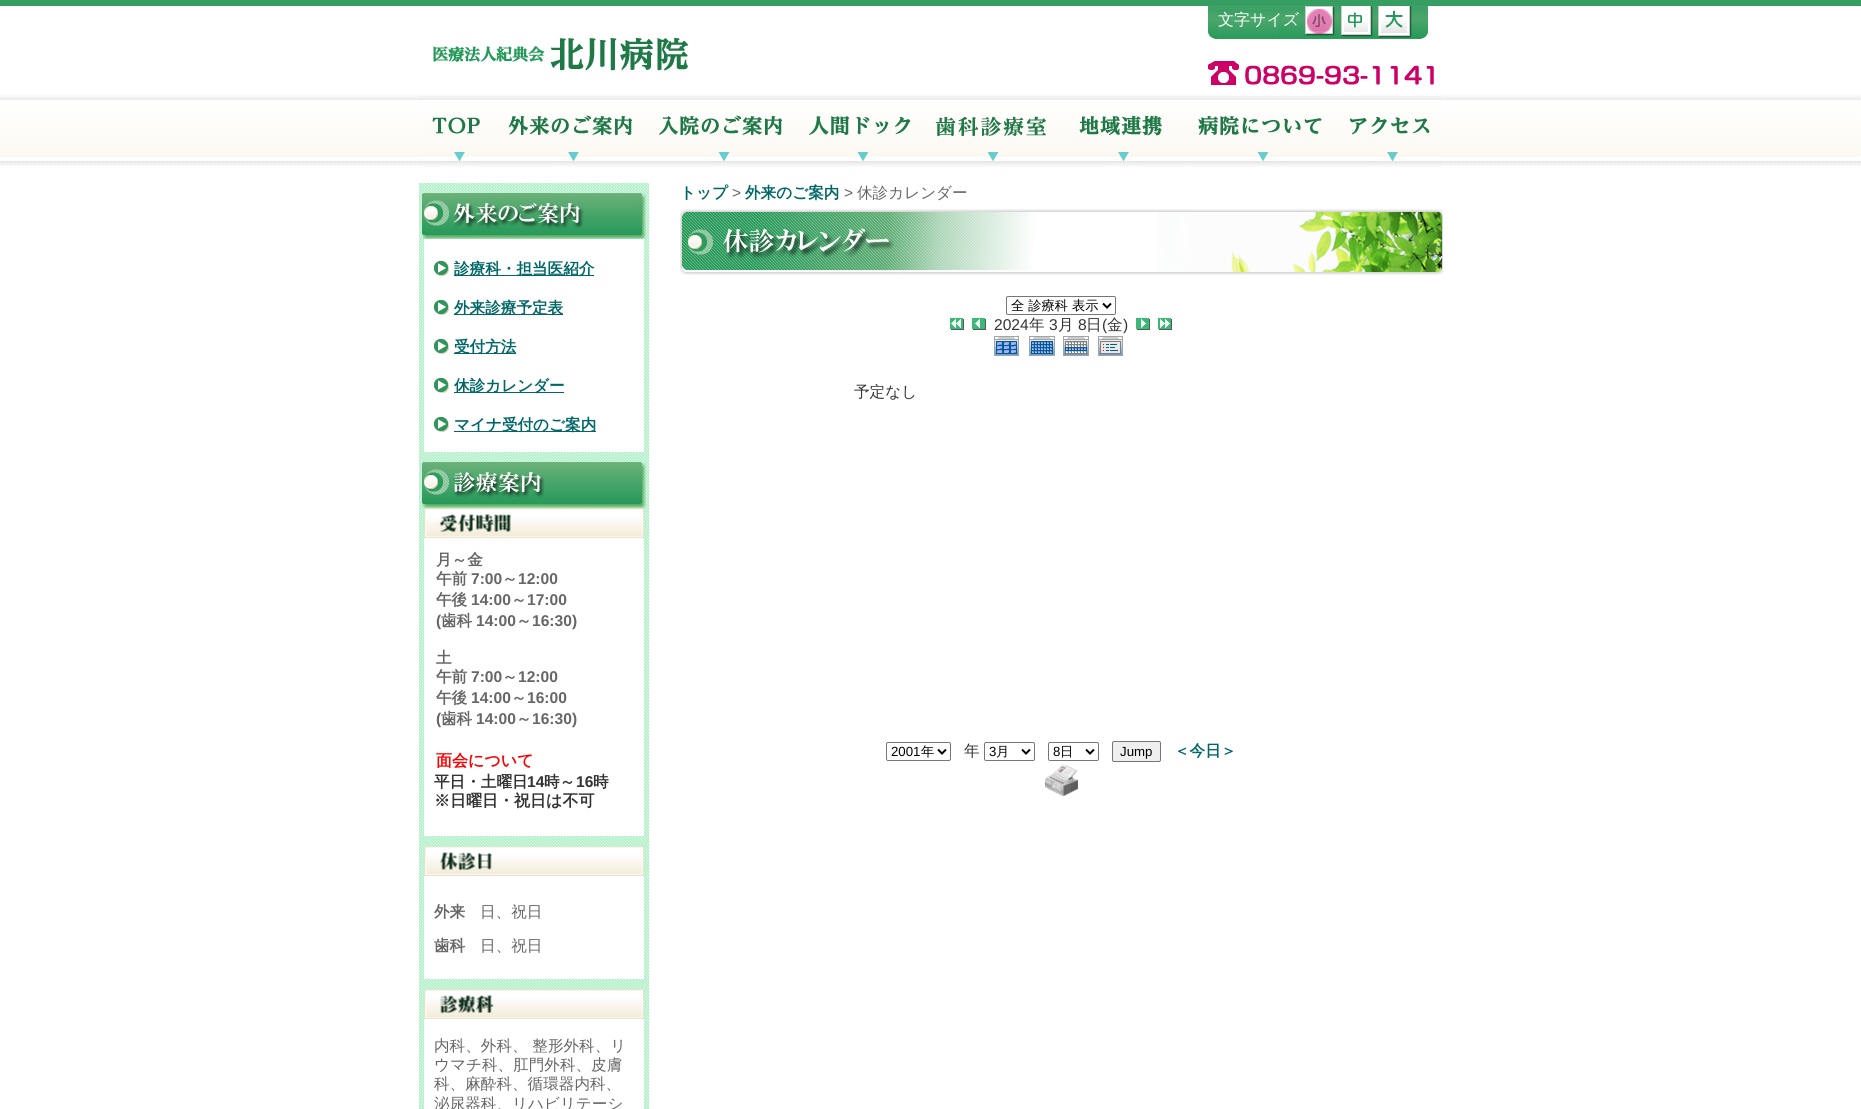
import math
import cairo

surface = cairo.ImageSurface(cairo.FORMAT_RGB24, 1861, 1109)
cr = cairo.Context(surface)
options = cairo.FontOptions()
options.set_hint_metrics(cairo.HINT_METRICS_OFF)
options.set_hint_style(cairo.HINT_STYLE_NONE)
cr.set_font_options(options)
cr.set_miter_limit(4)


def rgb(code):
    cr.set_source_rgb(*(v / 255 for v in bytes.fromhex(code[-6:])))


def rrect(x, y, w, h, r):
    cr.new_sub_path()
    for i, (u, v) in enumerate([(x + w - r, y + h - r), (x + r, y + h - r), (x + r, y + r), (x + w - r, y + r)]):
        cr.arc(u, v, r, i * math.pi / 2, (i + 1) * math.pi / 2)
    cr.close_path()


def image(path, x, y, w, h):
    cr.save()
    cr.set_source_surface(cairo.ImageSurface.create_from_png(path), x, y)
    cr.rectangle(x, y, w, h)
    cr.fill()
    cr.restore()


rgb("#ffffff")
cr.paint()
image("img/1.png", 0, 0, 1861, 166)
image("img/2.png", 1208, 6, 224, 33)
image("img/3.png", 1307, 9, 25, 25)
image("img/4.png", 1208, 55, 231, 32)
image("img/5.png", 433, 38, 256, 34)
rgb("#f3f2ed")
cr.rectangle(419, 96, 1024, 1)
cr.fill()
image("img/6.png", 419, 97, 77, 55)
image("img/7.png", 419, 152, 77, 16)
image("img/8.png", 496, 97, 150, 55)
image("img/9.png", 496, 152, 150, 16)
image("img/10.png", 646, 97, 150, 55)
image("img/11.png", 646, 152, 150, 16)
image("img/12.png", 796, 97, 130, 55)
image("img/13.png", 796, 152, 130, 16)
image("img/14.png", 926, 97, 130, 55)
image("img/13.png", 926, 152, 130, 16)
image("img/15.png", 1056, 97, 130, 55)
image("img/16.png", 1056, 152, 130, 16)
image("img/17.png", 1186, 97, 150, 55)
image("img/18.png", 1186, 152, 150, 16)
image("img/19.png", 1336, 97, 107, 55)
image("img/20.png", 1336, 152, 107, 16)
image("img/21.png", 419, 183, 230, 926)
image("img/22.png", 422, 193, 224, 46)
rgb("#ffffff")
cr.rectangle(424, 239, 220, 213)
cr.fill()
image("img/23.png", 434, 261, 15, 15)
rgb("#006666")
cr.rectangle(454, 275, 140, 1)
cr.fill()
image("img/23.png", 434, 300, 15, 15)
cr.rectangle(454, 314, 109, 1)
cr.fill()
image("img/23.png", 434, 339, 15, 15)
cr.rectangle(454, 353, 62, 1)
cr.fill()
image("img/23.png", 434, 378, 15, 15)
cr.rectangle(454, 392, 110, 1)
cr.fill()
image("img/23.png", 434, 417, 15, 15)
cr.rectangle(454, 431, 142, 1)
cr.fill()
image("img/24.png", 422, 462, 224, 46)
rgb("#ffffff")
cr.rectangle(424, 538, 220, 298)
cr.fill()
image("img/25.png", 424, 508, 220, 30)
cr.rectangle(424, 876, 220, 103)
cr.fill()
image("img/26.png", 424, 846, 220, 30)
cr.rectangle(424, 1019, 220, 90)
cr.fill()
image("img/27.png", 424, 989, 220, 30)
image("img/28.png", 680, 209, 763, 66)
rrect(1006.5, 296.5, 109, 18, 1.5)
rgb("#767676")
cr.set_line_width(1)
cr.stroke()
cr.new_path()
cr.move_to(1103, 303.5)
cr.line_to(1107, 307.5)
cr.line_to(1111, 303.5)
rgb("#000000")
cr.set_line_width(2)
cr.stroke()
image("img/29.png", 950, 318, 14, 12)
image("img/30.png", 972, 318, 14, 12)
image("img/31.png", 1136, 318, 14, 12)
image("img/32.png", 1158, 318, 14, 12)
image("img/33.png", 994, 336, 25, 20)
image("img/34.png", 1029, 336, 26, 20)
image("img/35.png", 1063, 336, 26, 20)
image("img/36.png", 1098, 336, 25, 20)
rrect(886.5, 742.5, 64, 18, 1.5)
rgb("#767676")
cr.set_line_width(1)
cr.stroke()
cr.new_path()
cr.move_to(938, 749.5)
cr.line_to(942, 753.5)
cr.line_to(946, 749.5)
rgb("#000000")
cr.set_line_width(2)
cr.stroke()
rrect(984.5, 742.5, 50, 18, 1.5)
rgb("#767676")
cr.set_line_width(1)
cr.stroke()
cr.new_path()
cr.move_to(1022, 749.5)
cr.line_to(1026, 753.5)
cr.line_to(1030, 749.5)
rgb("#000000")
cr.set_line_width(2)
cr.stroke()
rrect(1048.5, 742.5, 50, 18, 1.5)
rgb("#767676")
cr.set_line_width(1)
cr.stroke()
cr.new_path()
cr.move_to(1086, 749.5)
cr.line_to(1090, 753.5)
cr.line_to(1094, 749.5)
rgb("#000000")
cr.set_line_width(2)
cr.stroke()
rgb("#efefef")
rrect(1112.5, 741.5, 48, 20, 1.5)
cr.fill_preserve()
rgb("#767676")
cr.set_line_width(1)
cr.stroke()
image("img/37.png", 1045, 764, 33, 32)
cr.select_font_face("WenQuanYi Zen Hei Medium")
cr.set_font_size(16)
rgb("#ffffff")
cr.move_to(1218, 25)
cr.show_text("文字サイズ")
cr.select_font_face("WenQuanYi Zen Hei", cairo.FONT_SLANT_NORMAL, cairo.FONT_WEIGHT_BOLD)
cr.set_font_size(15.6)
rgb("#006666")
for x, y, s in [
    (454, 274, "診療科・担当医紹介"),
    (454, 313, "外来診療予定表"),
    (454, 352, "受付方法"),
    (454, 391, "休診カレンダー"),
    (454, 430, "マイナ受付のご案内"),
]:
    cr.move_to(x, y)
    cr.show_text(s)
rgb("#666666")
cr.move_to(436, 565)
cr.show_text("月～金")
cr.move_to(436, 584)
cr.show_text("午前")
cr.select_font_face("Liberation Sans", cairo.FONT_SLANT_NORMAL, cairo.FONT_WEIGHT_BOLD)
cr.move_to(471, 584)
cr.show_text("7:00")
cr.select_font_face("WenQuanYi Zen Hei", cairo.FONT_SLANT_NORMAL, cairo.FONT_WEIGHT_BOLD)
cr.move_to(502, 584)
cr.show_text("～")
cr.select_font_face("Liberation Sans", cairo.FONT_SLANT_NORMAL, cairo.FONT_WEIGHT_BOLD)
cr.move_to(518, 584)
cr.show_text("12:00")
cr.select_font_face("WenQuanYi Zen Hei", cairo.FONT_SLANT_NORMAL, cairo.FONT_WEIGHT_BOLD)
cr.move_to(436, 605)
cr.show_text("午後")
cr.select_font_face("Liberation Sans", cairo.FONT_SLANT_NORMAL, cairo.FONT_WEIGHT_BOLD)
cr.move_to(471, 605)
cr.show_text("14:00")
cr.select_font_face("WenQuanYi Zen Hei", cairo.FONT_SLANT_NORMAL, cairo.FONT_WEIGHT_BOLD)
cr.move_to(511, 605)
cr.show_text("～")
cr.select_font_face("Liberation Sans", cairo.FONT_SLANT_NORMAL, cairo.FONT_WEIGHT_BOLD)
cr.move_to(527, 605)
cr.show_text("17:00")
cr.move_to(436, 626)
cr.show_text("(")
cr.select_font_face("WenQuanYi Zen Hei", cairo.FONT_SLANT_NORMAL, cairo.FONT_WEIGHT_BOLD)
cr.move_to(441, 626)
cr.show_text("歯科")
cr.select_font_face("Liberation Sans", cairo.FONT_SLANT_NORMAL, cairo.FONT_WEIGHT_BOLD)
cr.move_to(476, 626)
cr.show_text("14:00")
cr.select_font_face("WenQuanYi Zen Hei", cairo.FONT_SLANT_NORMAL, cairo.FONT_WEIGHT_BOLD)
cr.move_to(516, 626)
cr.show_text("～")
cr.select_font_face("Liberation Sans", cairo.FONT_SLANT_NORMAL, cairo.FONT_WEIGHT_BOLD)
cr.move_to(532, 626)
cr.show_text("16:30)")
cr.select_font_face("WenQuanYi Zen Hei", cairo.FONT_SLANT_NORMAL, cairo.FONT_WEIGHT_BOLD)
cr.move_to(436, 663)
cr.show_text("土")
cr.move_to(436, 682)
cr.show_text("午前")
cr.select_font_face("Liberation Sans", cairo.FONT_SLANT_NORMAL, cairo.FONT_WEIGHT_BOLD)
cr.move_to(471, 682)
cr.show_text("7:00")
cr.select_font_face("WenQuanYi Zen Hei", cairo.FONT_SLANT_NORMAL, cairo.FONT_WEIGHT_BOLD)
cr.move_to(502, 682)
cr.show_text("～")
cr.select_font_face("Liberation Sans", cairo.FONT_SLANT_NORMAL, cairo.FONT_WEIGHT_BOLD)
cr.move_to(518, 682)
cr.show_text("12:00")
cr.select_font_face("WenQuanYi Zen Hei", cairo.FONT_SLANT_NORMAL, cairo.FONT_WEIGHT_BOLD)
cr.move_to(436, 703)
cr.show_text("午後")
cr.select_font_face("Liberation Sans", cairo.FONT_SLANT_NORMAL, cairo.FONT_WEIGHT_BOLD)
cr.move_to(471, 703)
cr.show_text("14:00")
cr.select_font_face("WenQuanYi Zen Hei", cairo.FONT_SLANT_NORMAL, cairo.FONT_WEIGHT_BOLD)
cr.move_to(511, 703)
cr.show_text("～")
cr.select_font_face("Liberation Sans", cairo.FONT_SLANT_NORMAL, cairo.FONT_WEIGHT_BOLD)
cr.move_to(527, 703)
cr.show_text("16:00")
cr.move_to(436, 724)
cr.show_text("(")
cr.select_font_face("WenQuanYi Zen Hei", cairo.FONT_SLANT_NORMAL, cairo.FONT_WEIGHT_BOLD)
cr.move_to(441, 724)
cr.show_text("歯科")
cr.select_font_face("Liberation Sans", cairo.FONT_SLANT_NORMAL, cairo.FONT_WEIGHT_BOLD)
cr.move_to(476, 724)
cr.show_text("14:00")
cr.select_font_face("WenQuanYi Zen Hei", cairo.FONT_SLANT_NORMAL, cairo.FONT_WEIGHT_BOLD)
cr.move_to(516, 724)
cr.show_text("～")
cr.select_font_face("Liberation Sans", cairo.FONT_SLANT_NORMAL, cairo.FONT_WEIGHT_BOLD)
cr.move_to(532, 724)
cr.show_text("16:30)")
cr.select_font_face("WenQuanYi Zen Hei", cairo.FONT_SLANT_NORMAL, cairo.FONT_WEIGHT_BOLD)
cr.set_font_size(16)
rgb("#ff0000")
cr.move_to(436, 766)
cr.show_text("面会について")
cr.set_font_size(15.6)
rgb("#333333")
cr.move_to(434, 787)
cr.show_text("平日・土曜日")
cr.select_font_face("Liberation Sans", cairo.FONT_SLANT_NORMAL, cairo.FONT_WEIGHT_BOLD)
cr.move_to(527, 787)
cr.show_text("14")
cr.select_font_face("WenQuanYi Zen Hei", cairo.FONT_SLANT_NORMAL, cairo.FONT_WEIGHT_BOLD)
cr.move_to(544, 787)
cr.show_text("時～")
cr.select_font_face("Liberation Sans", cairo.FONT_SLANT_NORMAL, cairo.FONT_WEIGHT_BOLD)
cr.move_to(576, 787)
cr.show_text("16")
cr.select_font_face("WenQuanYi Zen Hei", cairo.FONT_SLANT_NORMAL, cairo.FONT_WEIGHT_BOLD)
cr.move_to(593, 787)
cr.show_text("時")
cr.set_font_size(16)
cr.move_to(434, 806)
cr.show_text("※日曜日・祝日は不可")
cr.set_font_size(15.6)
rgb("#666666")
cr.move_to(434, 917)
cr.show_text("外来")
cr.select_font_face("WenQuanYi Zen Hei Medium")
cr.move_to(480, 917)
cr.show_text("日、祝日")
cr.select_font_face("WenQuanYi Zen Hei", cairo.FONT_SLANT_NORMAL, cairo.FONT_WEIGHT_BOLD)
cr.move_to(434, 951)
cr.show_text("歯科")
cr.select_font_face("WenQuanYi Zen Hei Medium")
for x, y, s in [
    (480, 951, "日、祝日"),
    (434, 1051, "内科、外科、 整形外科、リ"),
    (434, 1070, "ウマチ科、肛門外科、皮膚"),
    (434, 1089, "科、麻酔科、循環器内科、"),
    (434, 1109, "泌尿器科、リハビリテーシ"),
]:
    cr.move_to(x, y)
    cr.show_text(s)
cr.select_font_face("WenQuanYi Zen Hei", cairo.FONT_SLANT_NORMAL, cairo.FONT_WEIGHT_BOLD)
rgb("#006666")
cr.move_to(680, 198)
cr.show_text("トップ")
cr.select_font_face("Liberation Sans")
rgb("#666666")
cr.move_to(732, 198)
cr.show_text(">")
cr.select_font_face("WenQuanYi Zen Hei", cairo.FONT_SLANT_NORMAL, cairo.FONT_WEIGHT_BOLD)
rgb("#006666")
cr.move_to(745, 198)
cr.show_text("外来のご案内")
cr.select_font_face("Liberation Sans")
rgb("#666666")
cr.move_to(844, 198)
cr.show_text(">")
cr.select_font_face("WenQuanYi Zen Hei Medium")
cr.move_to(857, 198)
cr.show_text("休診カレンダー")
cr.set_font_size(13.25)
rgb("#000000")
cr.move_to(1011, 310)
cr.show_text("全 診療科 表示")
cr.select_font_face("Liberation Sans")
cr.set_font_size(15.6)
rgb("#333333")
cr.move_to(994, 330)
cr.show_text("2024")
cr.select_font_face("WenQuanYi Zen Hei Medium")
cr.move_to(1029, 330)
cr.show_text("年")
cr.select_font_face("Liberation Sans")
cr.move_to(1049, 330)
cr.show_text("3")
cr.select_font_face("WenQuanYi Zen Hei Medium")
cr.move_to(1058, 330)
cr.show_text("月")
cr.select_font_face("Liberation Sans")
cr.move_to(1078, 330)
cr.show_text("8")
cr.select_font_face("WenQuanYi Zen Hei Medium")
cr.move_to(1086, 330)
cr.show_text("日")
cr.select_font_face("Liberation Sans")
cr.move_to(1102, 330)
cr.show_text("(")
cr.select_font_face("WenQuanYi Zen Hei Medium")
cr.move_to(1107, 330)
cr.show_text("金")
cr.select_font_face("Liberation Sans")
cr.move_to(1123, 330)
cr.show_text(")")
cr.select_font_face("WenQuanYi Zen Hei Medium")
cr.move_to(854, 397)
cr.show_text("予定なし")
cr.select_font_face("Liberation Sans")
cr.set_font_size(13.25)
rgb("#000000")
cr.move_to(891, 756)
cr.show_text("2001")
cr.select_font_face("WenQuanYi Zen Hei Medium")
cr.move_to(921, 756)
cr.show_text("年")
cr.set_font_size(15.6)
rgb("#333333")
cr.move_to(964, 756)
cr.show_text("年")
cr.select_font_face("Liberation Sans")
cr.set_font_size(13.25)
rgb("#000000")
cr.move_to(989, 756)
cr.show_text("3")
cr.select_font_face("WenQuanYi Zen Hei Medium")
cr.move_to(996, 756)
cr.show_text("月")
cr.select_font_face("Liberation Sans")
cr.move_to(1053, 756)
cr.show_text("8")
cr.select_font_face("WenQuanYi Zen Hei Medium")
cr.move_to(1060, 756)
cr.show_text("日")
cr.select_font_face("Liberation Sans")
cr.move_to(1120, 756)
cr.show_text("Jump")
cr.select_font_face("WenQuanYi Zen Hei", cairo.FONT_SLANT_NORMAL, cairo.FONT_WEIGHT_BOLD)
cr.set_font_size(15.6)
rgb("#006666")
cr.move_to(1174, 756)
cr.show_text("＜今日＞")
surface.write_to_png("page.png")
